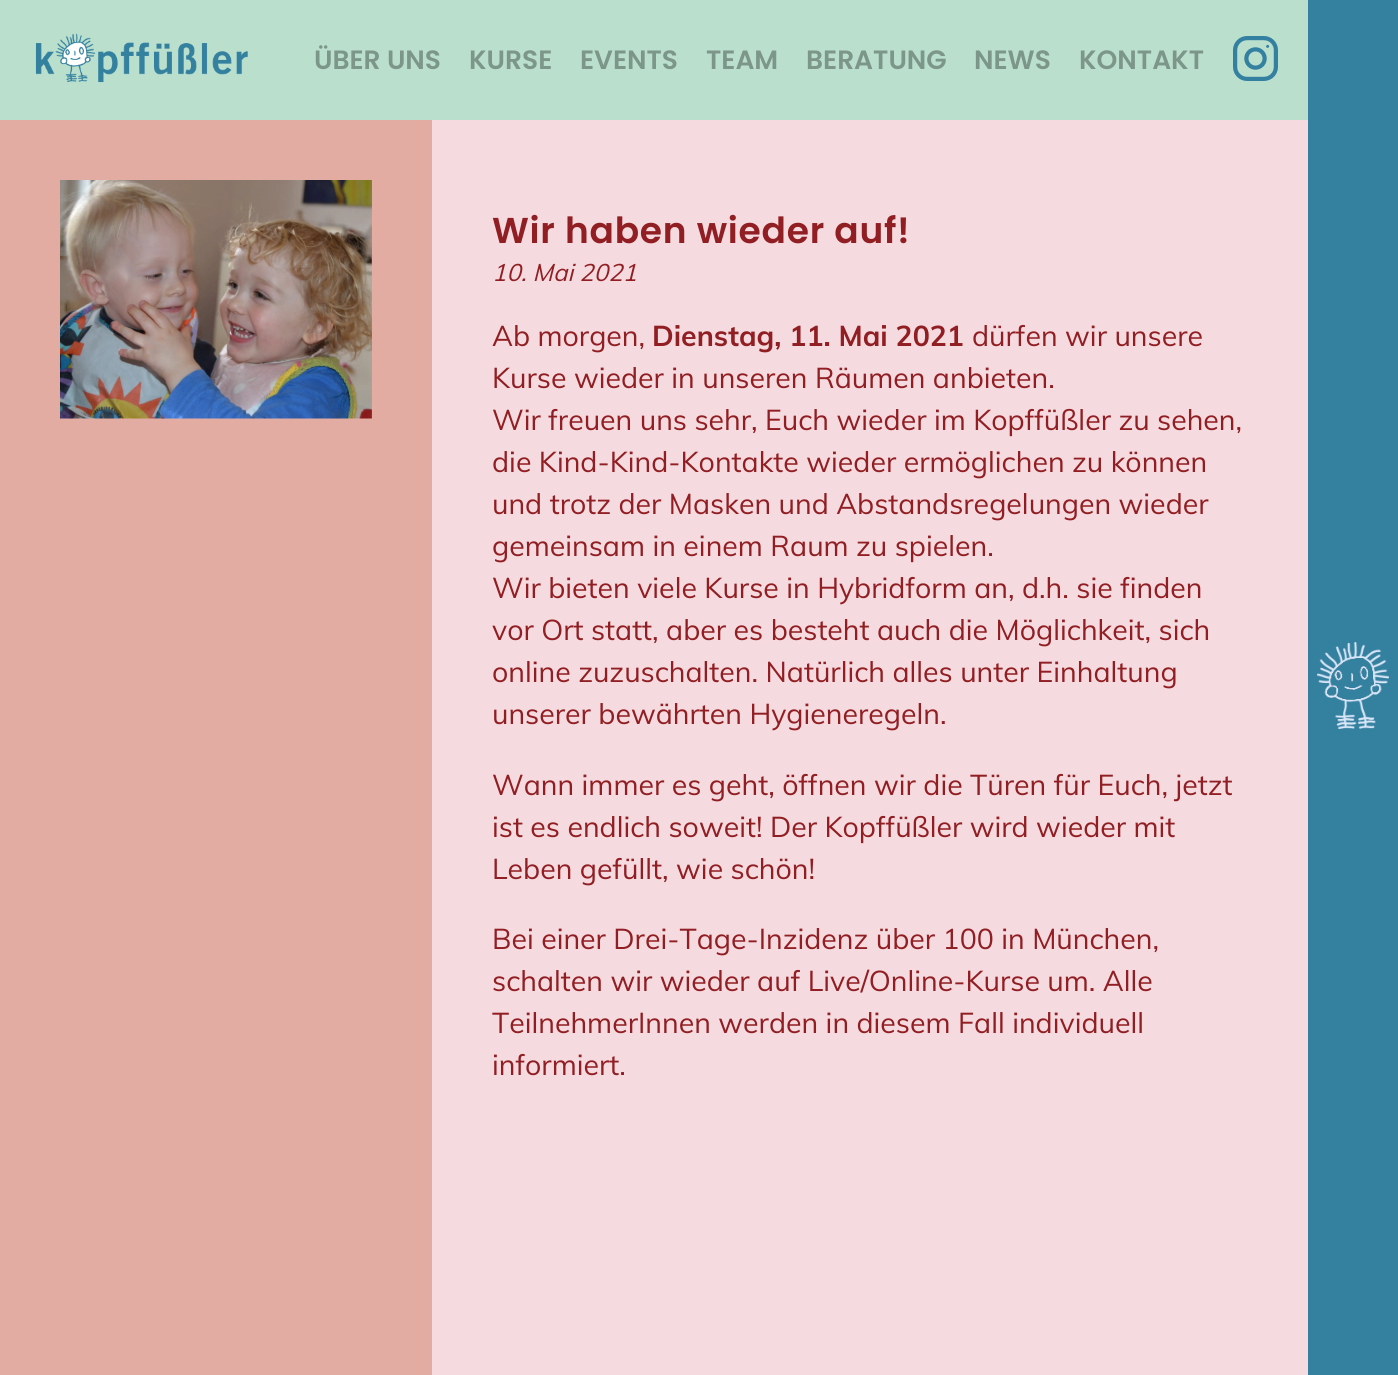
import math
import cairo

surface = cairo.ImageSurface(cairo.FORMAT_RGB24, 1398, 1375)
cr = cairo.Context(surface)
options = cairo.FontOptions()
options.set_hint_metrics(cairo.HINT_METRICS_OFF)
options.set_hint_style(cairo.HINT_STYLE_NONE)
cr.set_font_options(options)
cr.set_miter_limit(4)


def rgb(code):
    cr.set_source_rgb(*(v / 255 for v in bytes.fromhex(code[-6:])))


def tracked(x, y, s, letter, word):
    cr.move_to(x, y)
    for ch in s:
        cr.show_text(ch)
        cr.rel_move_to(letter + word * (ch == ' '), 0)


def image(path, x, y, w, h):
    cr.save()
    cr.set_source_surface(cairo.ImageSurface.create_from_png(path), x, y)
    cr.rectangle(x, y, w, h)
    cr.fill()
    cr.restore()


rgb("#f5dadf")
cr.paint()
rgb("#bae0cd")
cr.rectangle(0, 0, 1308, 120)
cr.fill()
image("img/1.png", 35, 33, 213, 50)
image("img/2.png", 1233, 36, 45, 45)
rgb("#34809f")
cr.rectangle(1308, 0, 90, 1375)
cr.fill()
image("img/3.png", 1317, 642, 72, 87)
rgb("#e2aca3")
cr.rectangle(0, 120, 432, 1255)
cr.fill()
image("img/4.png", 60, 180, 312, 239)
cr.select_font_face("Poppins SemiBold")
cr.set_font_size(26.5)
rgb("#7d968a")
for x, y, s in [
    (314, 69, "ÜBER UNS"),
    (469, 69, "KURSE"),
    (580, 69, "EVENTS"),
    (706, 69, "TEAM"),
    (806, 69, "BERATUNG"),
    (974, 69, "NEWS"),
    (1079, 69, "KONTAKT"),
]:
    cr.move_to(x, y)
    cr.show_text(s)
cr.set_font_size(36)
rgb("#911e22")
tracked(492, 243, "Wir haben wieder auf!", 0.75, 0)
cr.select_font_face("Muli", cairo.FONT_SLANT_ITALIC)
cr.set_font_size(24)
cr.move_to(492, 281)
cr.show_text("10. Mai 2021")
cr.select_font_face("Muli")
cr.set_font_size(28.5)
cr.move_to(492, 346)
cr.show_text("Ab morgen,")
cr.select_font_face("Muli", cairo.FONT_SLANT_NORMAL, cairo.FONT_WEIGHT_BOLD)
cr.move_to(652, 346)
cr.show_text("Dienstag, 11. Mai 2021")
cr.select_font_face("Muli")
for x, y, s in [
    (972, 346, "dürfen wir unsere"),
    (492, 388, "Kurse wieder in unseren Räumen anbieten."),
    (492, 430, "Wir freuen uns sehr, Euch wieder im Kopffüßler zu sehen,"),
    (492, 472, "die Kind-Kind-Kontakte wieder ermöglichen zu können"),
    (492, 514, "und trotz der Masken und Abstandsregelungen wieder"),
    (492, 556, "gemeinsam in einem Raum zu spielen."),
    (492, 598, "Wir bieten viele Kurse in Hybridform an, d.h. sie finden"),
    (492, 640, "vor Ort statt, aber es besteht auch die Möglichkeit, sich"),
    (492, 682, "online zuzuschalten. Natürlich alles unter Einhaltung"),
    (492, 724, "unserer bewährten Hygieneregeln."),
    (492, 795, "Wann immer es geht, öffnen wir die Türen für Euch, jetzt"),
    (492, 837, "ist es endlich soweit! Der Kopffüßler wird wieder mit"),
    (492, 879, "Leben gefüllt, wie schön!"),
    (492, 949, "Bei einer Drei-Tage-Inzidenz über 100 in München,"),
    (492, 991, "schalten wir wieder auf Live/Online-Kurse um. Alle"),
    (492, 1033, "TeilnehmerInnen werden in diesem Fall individuell"),
    (492, 1075, "informiert."),
]:
    cr.move_to(x, y)
    cr.show_text(s)
surface.write_to_png("page.png")
